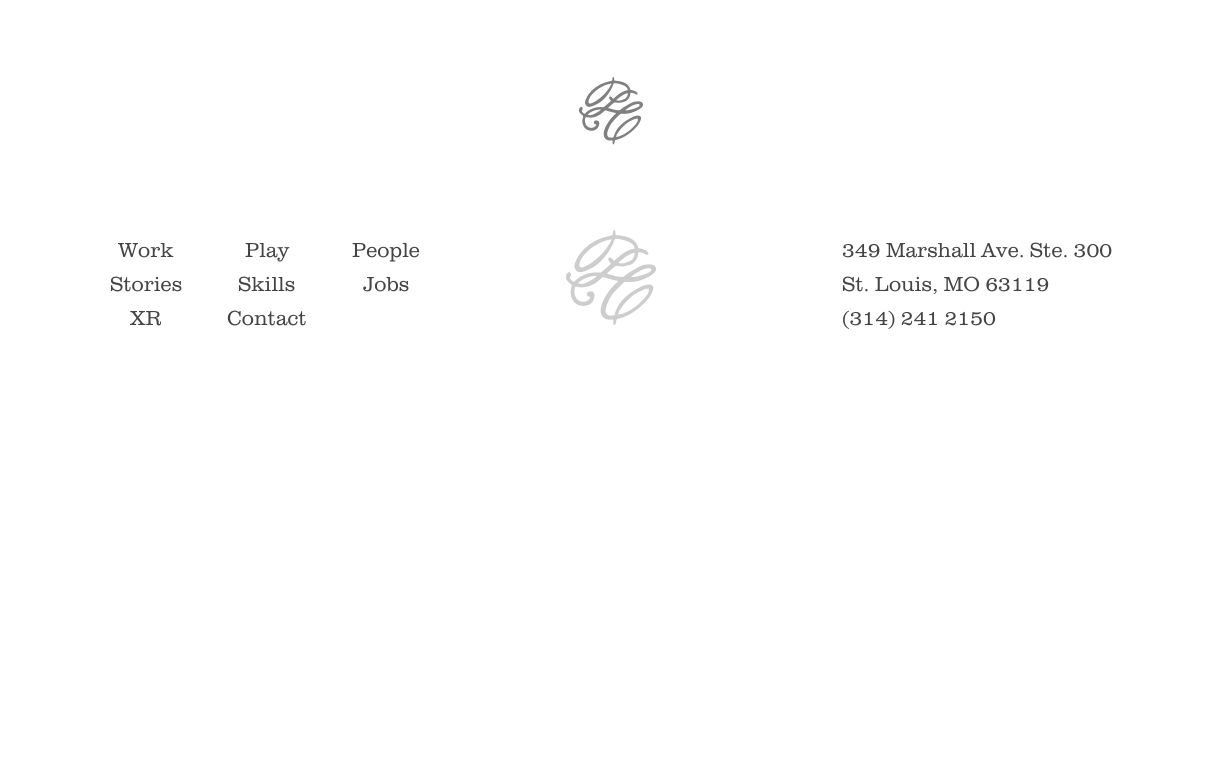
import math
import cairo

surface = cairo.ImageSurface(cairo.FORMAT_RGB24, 1222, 761)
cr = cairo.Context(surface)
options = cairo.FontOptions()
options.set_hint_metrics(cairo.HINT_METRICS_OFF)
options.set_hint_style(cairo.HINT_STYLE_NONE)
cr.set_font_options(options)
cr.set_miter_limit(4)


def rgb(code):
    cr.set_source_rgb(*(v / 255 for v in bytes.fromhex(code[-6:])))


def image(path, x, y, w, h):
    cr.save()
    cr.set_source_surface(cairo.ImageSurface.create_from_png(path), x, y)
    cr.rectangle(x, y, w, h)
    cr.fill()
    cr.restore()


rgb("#ffffff")
cr.paint()
image("img/1.png", 579, 77, 64, 68)
image("img/2.png", 566, 230, 90, 95)
cr.select_font_face("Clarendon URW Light")
cr.set_font_size(21)
rgb("#444444")
for x, y, s in [
    (118, 257, "Work"),
    (110, 291, "Stories"),
    (130, 325, "XR"),
    (245, 257, "Play"),
    (238, 291, "Skills"),
    (227, 325, "Contact"),
    (352, 257, "People"),
    (363, 291, "Jobs"),
    (842, 257, "349 Marshall Ave. Ste. 300"),
    (842, 291, "St. Louis, MO 63119"),
    (842, 325, "(314) 241 2150"),
]:
    cr.move_to(x, y)
    cr.show_text(s)
surface.write_to_png("page.png")
